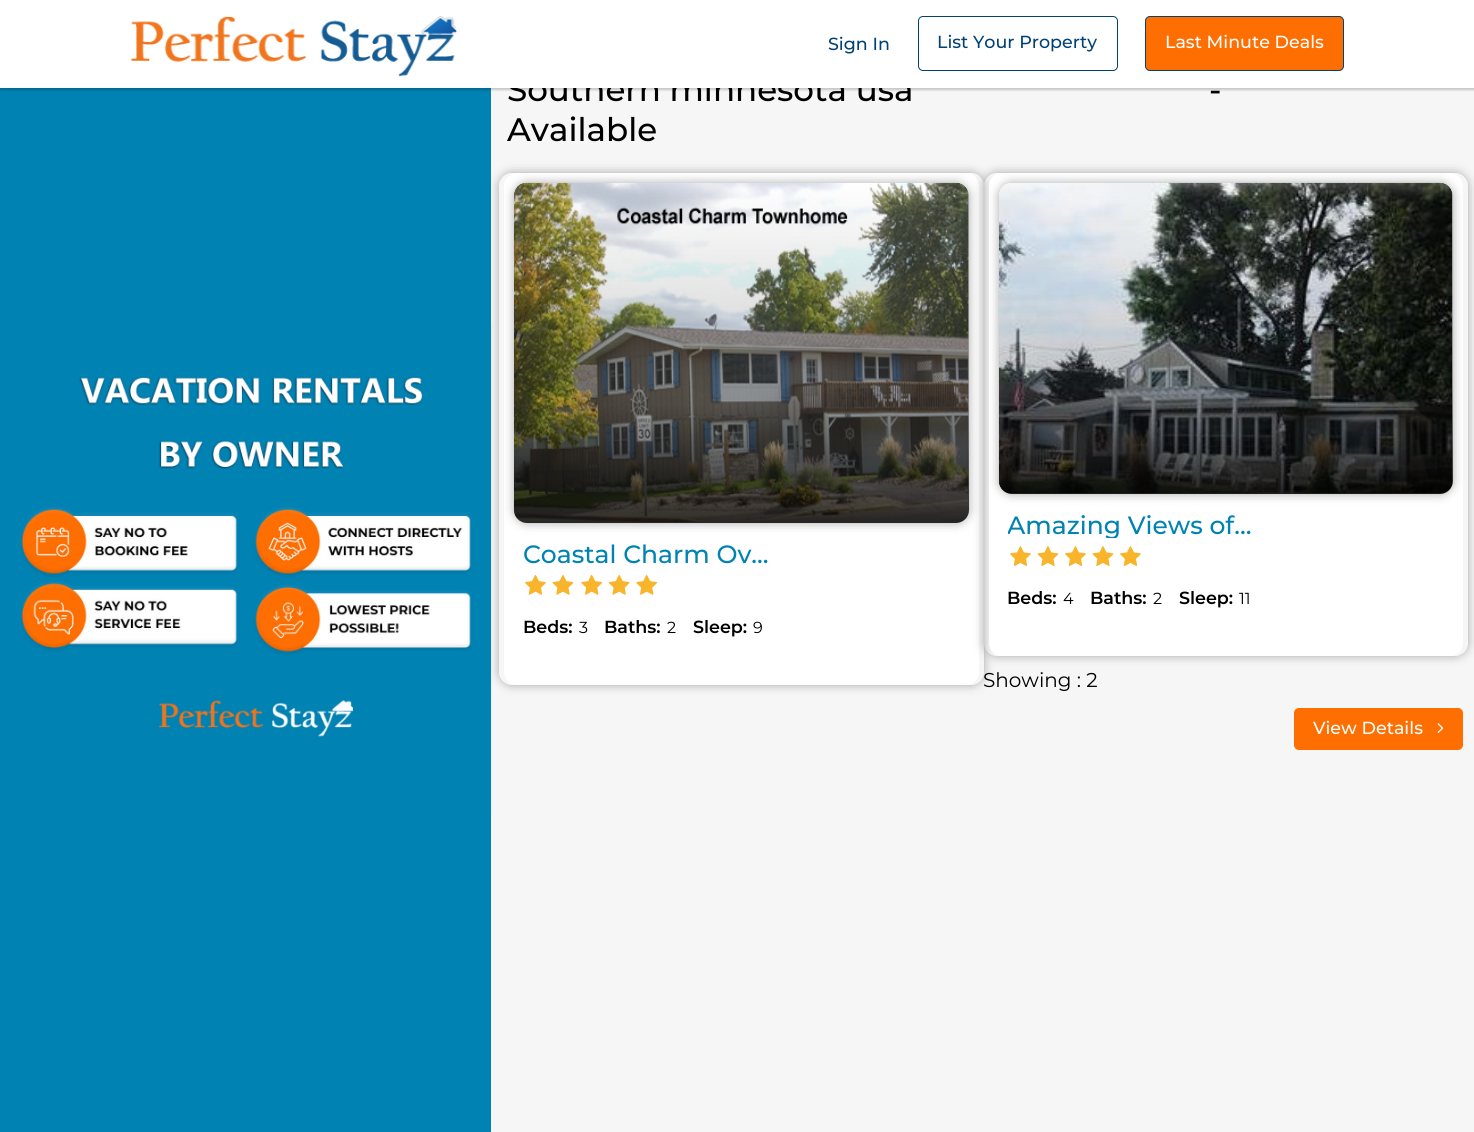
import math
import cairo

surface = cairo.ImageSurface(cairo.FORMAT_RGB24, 1474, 1132)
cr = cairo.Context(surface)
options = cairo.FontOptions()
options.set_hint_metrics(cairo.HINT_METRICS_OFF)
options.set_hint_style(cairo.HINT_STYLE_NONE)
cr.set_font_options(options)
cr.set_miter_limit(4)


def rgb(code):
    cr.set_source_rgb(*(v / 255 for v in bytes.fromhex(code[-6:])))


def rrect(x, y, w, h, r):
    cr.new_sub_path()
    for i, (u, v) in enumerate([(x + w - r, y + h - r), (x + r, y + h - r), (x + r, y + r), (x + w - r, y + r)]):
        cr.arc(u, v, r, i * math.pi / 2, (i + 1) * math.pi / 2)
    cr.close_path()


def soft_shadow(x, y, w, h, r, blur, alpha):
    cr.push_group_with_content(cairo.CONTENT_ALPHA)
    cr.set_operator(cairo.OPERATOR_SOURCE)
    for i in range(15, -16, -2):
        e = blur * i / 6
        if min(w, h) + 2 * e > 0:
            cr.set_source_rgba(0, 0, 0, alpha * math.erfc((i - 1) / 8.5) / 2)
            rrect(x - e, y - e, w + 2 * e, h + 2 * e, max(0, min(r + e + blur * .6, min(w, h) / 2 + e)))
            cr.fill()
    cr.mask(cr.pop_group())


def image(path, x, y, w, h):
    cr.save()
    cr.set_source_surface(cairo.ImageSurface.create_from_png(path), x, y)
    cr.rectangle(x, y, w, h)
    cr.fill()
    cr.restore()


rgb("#f6f6f6")
cr.paint()
rgb("#0082b3")
cr.rectangle(0, 88, 491, 1044)
cr.fill()
rgb("#000000")
soft_shadow(0, 3, 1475, 87, 0, 1, 0.2)
image("img/2.png", 21, 325, 471, 491)
cr.save()
cr.rectangle(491, 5, 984, 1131)
cr.clip()
cr.set_fill_rule(cairo.FILL_RULE_EVEN_ODD)
cr.new_path()
cr.move_to(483, 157)
cr.line_to(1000, 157)
cr.line_to(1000, 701)
cr.line_to(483, 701)
cr.close_path()
cr.move_to(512, 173)
cr.line_to(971, 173)
cr.curve_to(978, 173, 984, 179, 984, 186)
cr.line_to(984, 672)
cr.curve_to(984, 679, 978, 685, 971, 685)
cr.line_to(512, 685)
cr.curve_to(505, 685, 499, 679, 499, 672)
cr.line_to(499, 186)
cr.curve_to(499, 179, 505, 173, 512, 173)
cr.close_path()
cr.clip()
rgb("#a7a7a7")
soft_shadow(499, 173, 485, 512, 13, 5, 1)
cr.restore()
rgb("#ffffff")
rrect(504, 173, 475, 512, 13)
cr.fill()
rgb("#a7a7a7")
soft_shadow(514, 183, 455, 340, 13, 5, 1)
cr.save()
rrect(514, 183, 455, 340, 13)
cr.clip()
soft_shadow(514, 183, 455, 340, 13, 5, 1)
cr.restore()
cr.save()
cr.set_fill_rule(cairo.FILL_RULE_EVEN_ODD)
cr.new_path()
cr.move_to(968, 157)
cr.line_to(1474, 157)
cr.line_to(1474, 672)
cr.line_to(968, 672)
cr.close_path()
cr.move_to(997, 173)
cr.line_to(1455, 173)
cr.curve_to(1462, 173, 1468, 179, 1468, 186)
cr.line_to(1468, 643)
cr.curve_to(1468, 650, 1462, 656, 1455, 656)
cr.line_to(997, 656)
cr.curve_to(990, 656, 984, 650, 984, 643)
cr.line_to(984, 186)
cr.curve_to(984, 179, 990, 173, 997, 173)
cr.close_path()
cr.clip()
soft_shadow(984, 173, 484, 483, 13, 5, 1)
cr.restore()
image("img/3.png", 514, 182, 455, 341)
gradient = cairo.LinearGradient(741, 182, 741, 523)
gradient.add_color_stop_rgba(0, 0, 0, 0, 0)
gradient.add_color_stop_rgba(0.65, 0, 0, 0, 0.2)
gradient.add_color_stop_rgba(1, 0, 0, 0, 0.8)
cr.set_source(gradient)
rrect(514, 183, 455, 340, 13)
cr.fill()
image("img/4.png", 525, 575, 21, 20)
image("img/5.png", 552, 575, 22, 20)
image("img/6.png", 581, 575, 22, 20)
image("img/7.png", 608, 575, 22, 20)
image("img/6.png", 636, 575, 22, 20)
rgb("#ffffff")
rrect(989, 173, 474, 483, 13)
cr.fill()
rgb("#a7a7a7")
soft_shadow(999, 183, 454, 311, 13, 5, 1)
cr.save()
rrect(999, 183, 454, 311, 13)
cr.clip()
soft_shadow(999, 183, 454, 311, 13, 5, 1)
cr.restore()
image("img/8.png", 999, 182, 454, 312)
gradient = cairo.LinearGradient(1226, 182, 1226, 494)
gradient.add_color_stop_rgba(0, 0, 0, 0, 0)
gradient.add_color_stop_rgba(0.65, 0, 0, 0, 0.2)
gradient.add_color_stop_rgba(1, 0, 0, 0, 0.8)
cr.set_source(gradient)
rrect(999, 183, 454, 311, 13)
cr.fill()
image("img/9.png", 1010, 546, 21, 20)
image("img/10.png", 1037, 546, 22, 20)
image("img/9.png", 1065, 546, 21, 20)
image("img/10.png", 1092, 546, 22, 20)
image("img/9.png", 1120, 546, 21, 20)
rgb("#ff6e00")
rrect(1294, 708, 169, 42, 5)
cr.fill()
image("img/11.png", 1437, 723, 7, 10)
cr.select_font_face("Montserrat Medium")
cr.set_font_size(32.5)
rgb("#000000")
cr.move_to(507, 101)
cr.show_text("Southern minnesota usa")
rgb("#ffffff")
cr.rectangle(0, 0, 1474, 88)
cr.fill()
rgb("#ff6e00")
rrect(1145.5, 16.5, 198, 54, 4.5)
cr.fill_preserve()
rgb("#004274")
cr.set_line_width(1)
cr.stroke()
cr.set_font_size(17.5)
rgb("#ffffff")
cr.move_to(1165, 48)
cr.show_text("Last Minute Deals")
rrect(918.5, 16.5, 199, 54, 4.5)
rgb("#004274")
cr.stroke()
cr.move_to(937, 48)
cr.show_text("List Your Property")
cr.move_to(828, 50)
cr.show_text("Sign In")
image("img/1.png", 131, 16, 326, 61)
cr.set_font_size(32.5)
rgb("#000000")
cr.move_to(1209, 101)
cr.show_text("-")
cr.move_to(507, 141)
cr.show_text("Available")
cr.set_font_size(25)
rgb("#0083b3")
cr.move_to(523, 563)
cr.show_text("Coastal Charm Ov…")
cr.select_font_face("Montserrat SemiBold")
cr.set_font_size(17.5)
rgb("#000000")
cr.move_to(523, 633)
cr.show_text("Beds:")
cr.select_font_face("Montserrat")
cr.set_font_size(16)
cr.move_to(579, 633)
cr.show_text("3")
cr.select_font_face("Montserrat SemiBold")
cr.set_font_size(17.5)
cr.move_to(604, 633)
cr.show_text("Baths:")
cr.select_font_face("Montserrat")
cr.set_font_size(16)
cr.move_to(667, 633)
cr.show_text("2")
cr.select_font_face("Montserrat SemiBold")
cr.set_font_size(17.5)
cr.move_to(693, 633)
cr.show_text("Sleep:")
cr.select_font_face("Montserrat")
cr.set_font_size(16)
cr.move_to(753, 633)
cr.show_text("9")
cr.save()
cr.rectangle(1008, 513, 250, 25)
cr.clip()
cr.select_font_face("Montserrat Medium")
cr.set_font_size(25)
rgb("#0083b3")
cr.move_to(1007, 534)
cr.show_text("Amazing Views of…")
cr.restore()
cr.select_font_face("Montserrat SemiBold")
cr.set_font_size(17.5)
cr.move_to(1007, 604)
cr.show_text("Beds:")
cr.select_font_face("Montserrat")
cr.set_font_size(16)
cr.move_to(1063, 604)
cr.show_text("4")
cr.select_font_face("Montserrat SemiBold")
cr.set_font_size(17.5)
cr.move_to(1090, 604)
cr.show_text("Baths:")
cr.select_font_face("Montserrat")
cr.set_font_size(16)
cr.move_to(1153, 604)
cr.show_text("2")
cr.select_font_face("Montserrat SemiBold")
cr.set_font_size(17.5)
cr.move_to(1179, 604)
cr.show_text("Sleep:")
cr.select_font_face("Montserrat")
cr.set_font_size(16)
cr.move_to(1239, 604)
cr.show_text("11")
cr.select_font_face("Montserrat Medium")
cr.set_font_size(17.5)
rgb("#ffffff")
cr.move_to(1313, 734)
cr.show_text("View Details")
cr.select_font_face("Montserrat")
cr.set_font_size(20)
rgb("#000000")
cr.move_to(983, 687)
cr.show_text("Showing : 2")
surface.write_to_png("page.png")
